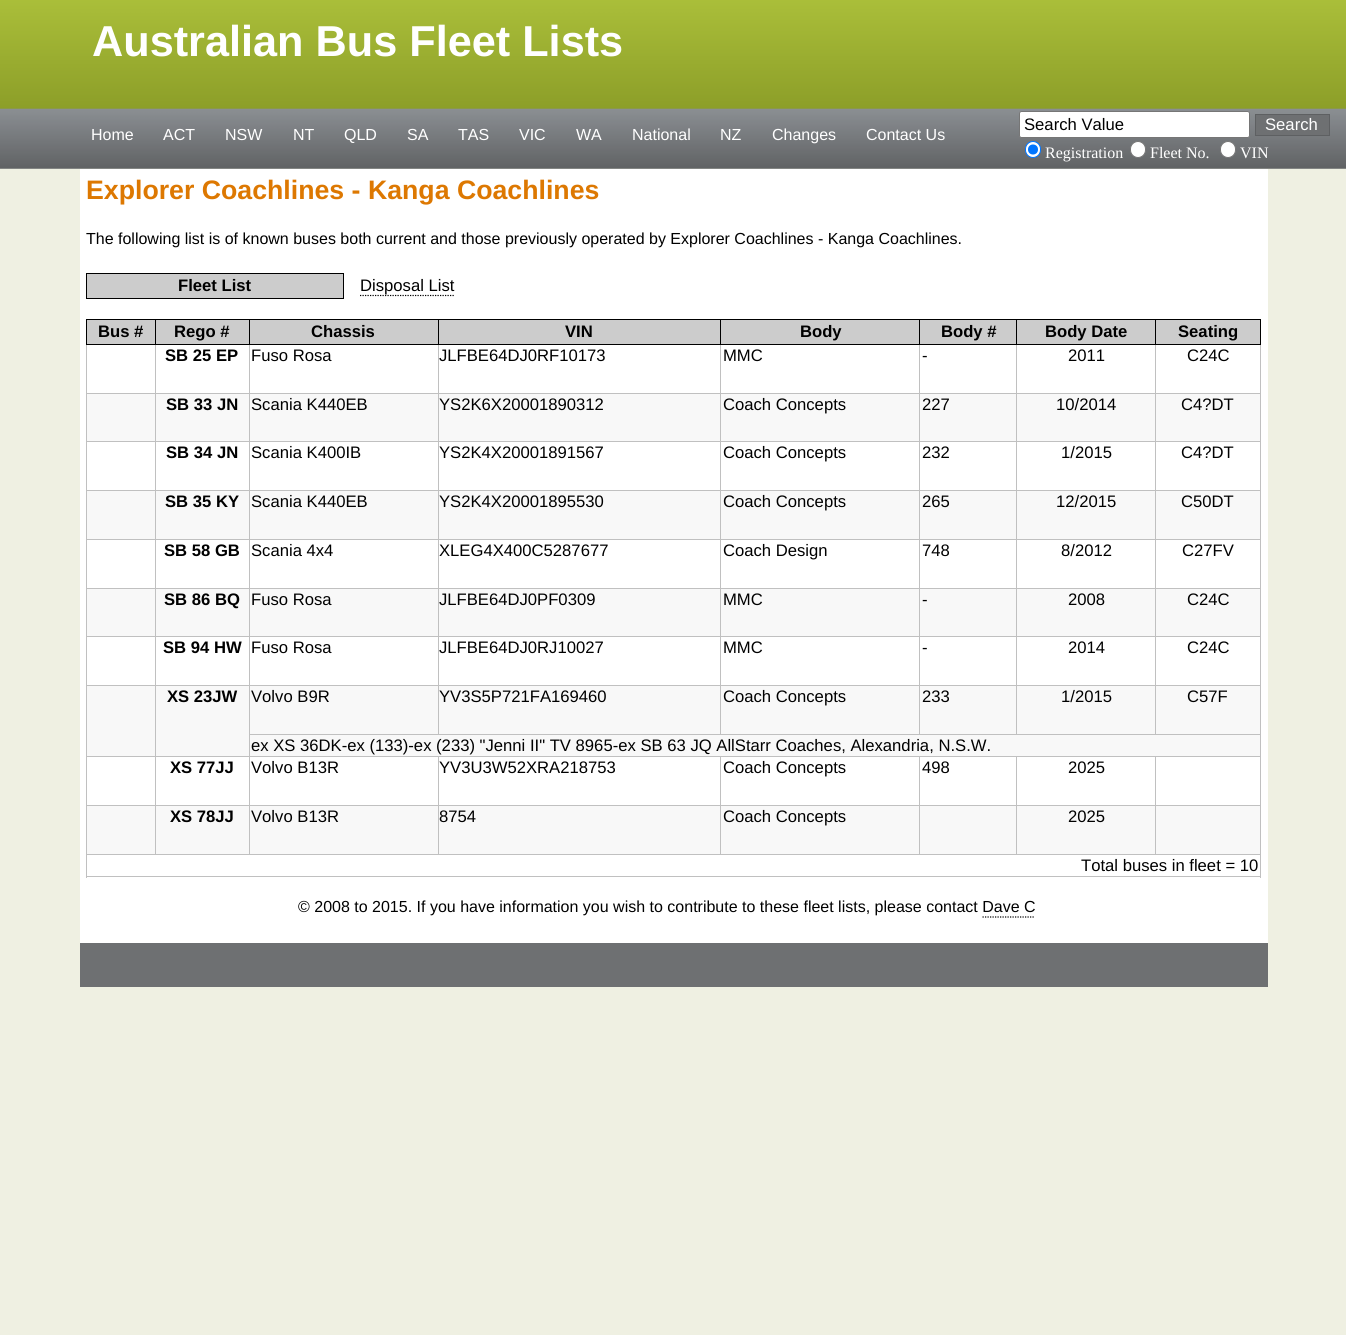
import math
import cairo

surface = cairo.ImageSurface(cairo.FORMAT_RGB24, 1346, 1335)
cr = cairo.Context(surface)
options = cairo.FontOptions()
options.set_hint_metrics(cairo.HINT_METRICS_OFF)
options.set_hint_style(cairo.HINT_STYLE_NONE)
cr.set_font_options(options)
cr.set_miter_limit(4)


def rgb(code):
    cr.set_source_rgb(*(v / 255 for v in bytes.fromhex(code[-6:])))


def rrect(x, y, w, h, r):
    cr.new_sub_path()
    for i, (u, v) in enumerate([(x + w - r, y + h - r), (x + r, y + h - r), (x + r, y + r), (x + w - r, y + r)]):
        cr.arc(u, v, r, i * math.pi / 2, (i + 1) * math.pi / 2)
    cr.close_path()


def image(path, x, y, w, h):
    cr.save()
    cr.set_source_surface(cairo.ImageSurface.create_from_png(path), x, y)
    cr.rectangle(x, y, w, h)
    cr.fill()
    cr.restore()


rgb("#eff0e2")
cr.paint()
image("img/1.png", 0, 0, 1346, 169)
rgb("#ffffff")
rrect(1019.5, 111.5, 230, 26, 2)
cr.fill_preserve()
rgb("#767676")
cr.set_line_width(1)
cr.stroke()
rgb("#6e7072")
cr.rectangle(1255.5, 114.5, 74, 21)
cr.fill_preserve()
rgb("#5e6062")
cr.stroke()
rgb("#ffffff")
rrect(1025.5, 141.5, 15, 16, 7.5)
cr.fill_preserve()
rgb("#0075ff")
cr.stroke()
cr.arc(1033, 149.5, 5, 0, 2 * math.pi)
cr.fill()
rgb("#ffffff")
rrect(1130.5, 141.5, 15, 16, 7.5)
cr.fill_preserve()
rgb("#767676")
cr.stroke()
rgb("#ffffff")
rrect(1220.5, 141.5, 15, 16, 7.5)
cr.fill_preserve()
rgb("#767676")
cr.stroke()
for x, y, w, h, color in [
    (80, 169, 1188, 774, "#ffffff"),
    (87, 274, 256, 24, "#cccccc"),
    (86, 273, 258, 1, "#000000"),
    (343, 273, 1, 26, "#000000"),
    (86, 298, 258, 1, "#000000"),
    (86, 273, 1, 26, "#000000"),
]:
    rgb(color)
    cr.rectangle(x, y, w, h)
    cr.fill()
cr.new_path()
cr.move_to(360, 295.5)
cr.line_to(454, 295.5)
cr.set_line_width(1.2)
cr.set_dash([1.25, 1.25])
cr.stroke()
for x, y, w, h, color in [
    (87, 320, 68, 24, "#cccccc"),
    (1155, 319, 106, 1, "#000000"),
    (1155, 393, 106, 1, "#c0c0c0"),
    (1155, 441, 106, 1, "#c0c0c0"),
    (1155, 490, 106, 1, "#c0c0c0"),
    (1155, 539, 106, 1, "#c0c0c0"),
    (1155, 588, 106, 1, "#c0c0c0"),
    (1155, 636, 106, 1, "#c0c0c0"),
    (1155, 685, 106, 1, "#c0c0c0"),
    (87, 686, 1173, 70, "#f8f8f8"),
    (249, 734, 1012, 1, "#c0c0c0"),
    (1155, 756, 106, 1, "#c0c0c0"),
    (1155, 805, 106, 1, "#c0c0c0"),
    (86, 854, 1175, 1, "#c0c0c0"),
    (1260, 854, 1, 24, "#c0c0c0"),
    (1260, 805, 1, 50, "#c0c0c0"),
    (1260, 756, 1, 50, "#c0c0c0"),
    (1260, 734, 1, 24, "#c0c0c0"),
    (1260, 685, 1, 50, "#c0c0c0"),
    (1260, 636, 1, 50, "#c0c0c0"),
    (1260, 588, 1, 50, "#c0c0c0"),
    (1260, 539, 1, 50, "#c0c0c0"),
    (1260, 490, 1, 50, "#c0c0c0"),
    (1260, 441, 1, 50, "#c0c0c0"),
    (1260, 344, 1, 99, "#c0c0c0"),
    (1260, 319, 1, 26, "#000000"),
    (87, 394, 1173, 47, "#f8f8f8"),
    (87, 491, 1173, 48, "#f8f8f8"),
    (87, 589, 1173, 47, "#f8f8f8"),
    (1155, 685, 1, 50, "#c0c0c0"),
    (1016, 685, 140, 1, "#c0c0c0"),
    (1155, 636, 1, 50, "#c0c0c0"),
    (1016, 636, 140, 1, "#c0c0c0"),
    (1155, 588, 1, 50, "#c0c0c0"),
    (1016, 588, 140, 1, "#c0c0c0"),
    (1155, 539, 1, 50, "#c0c0c0"),
    (1016, 539, 140, 1, "#c0c0c0"),
    (1155, 490, 1, 50, "#c0c0c0"),
    (1016, 490, 140, 1, "#c0c0c0"),
    (1155, 441, 1, 50, "#c0c0c0"),
    (1016, 441, 140, 1, "#c0c0c0"),
    (1155, 393, 1, 50, "#c0c0c0"),
    (1016, 393, 140, 1, "#c0c0c0"),
    (1155, 344, 1, 50, "#c0c0c0"),
    (1155, 344, 106, 1, "#000000"),
    (1155, 319, 1, 26, "#000000"),
    (1016, 319, 140, 1, "#000000"),
    (1016, 685, 1, 50, "#c0c0c0"),
    (919, 685, 99, 1, "#c0c0c0"),
    (1016, 636, 1, 50, "#c0c0c0"),
    (919, 636, 99, 1, "#c0c0c0"),
    (1016, 588, 1, 50, "#c0c0c0"),
    (919, 588, 99, 1, "#c0c0c0"),
    (1016, 539, 1, 50, "#c0c0c0"),
    (919, 539, 99, 1, "#c0c0c0"),
    (1016, 490, 1, 50, "#c0c0c0"),
    (919, 490, 99, 1, "#c0c0c0"),
    (1016, 441, 1, 50, "#c0c0c0"),
    (919, 441, 99, 1, "#c0c0c0"),
    (1016, 393, 1, 50, "#c0c0c0"),
    (919, 393, 99, 1, "#c0c0c0"),
    (1016, 344, 1, 50, "#c0c0c0"),
    (1016, 344, 140, 1, "#000000"),
    (1016, 319, 1, 26, "#000000"),
    (919, 319, 99, 1, "#000000"),
    (919, 685, 1, 50, "#c0c0c0"),
    (720, 685, 200, 1, "#c0c0c0"),
    (919, 636, 1, 50, "#c0c0c0"),
    (720, 636, 200, 1, "#c0c0c0"),
    (919, 588, 1, 50, "#c0c0c0"),
    (720, 588, 200, 1, "#c0c0c0"),
    (919, 539, 1, 50, "#c0c0c0"),
    (720, 539, 200, 1, "#c0c0c0"),
    (919, 490, 1, 50, "#c0c0c0"),
    (720, 490, 200, 1, "#c0c0c0"),
    (919, 441, 1, 50, "#c0c0c0"),
    (720, 441, 200, 1, "#c0c0c0"),
    (919, 393, 1, 50, "#c0c0c0"),
    (720, 393, 200, 1, "#c0c0c0"),
    (919, 344, 1, 50, "#c0c0c0"),
    (919, 344, 99, 1, "#000000"),
    (919, 319, 1, 26, "#000000"),
    (720, 319, 200, 1, "#000000"),
    (720, 685, 1, 50, "#c0c0c0"),
    (438, 685, 283, 1, "#c0c0c0"),
    (720, 636, 1, 50, "#c0c0c0"),
    (438, 636, 283, 1, "#c0c0c0"),
    (720, 588, 1, 50, "#c0c0c0"),
    (438, 588, 283, 1, "#c0c0c0"),
    (720, 539, 1, 50, "#c0c0c0"),
    (438, 539, 283, 1, "#c0c0c0"),
    (720, 490, 1, 50, "#c0c0c0"),
    (438, 490, 283, 1, "#c0c0c0"),
    (720, 441, 1, 50, "#c0c0c0"),
    (438, 441, 283, 1, "#c0c0c0"),
    (720, 393, 1, 50, "#c0c0c0"),
    (438, 393, 283, 1, "#c0c0c0"),
    (720, 344, 1, 50, "#c0c0c0"),
    (720, 344, 200, 1, "#000000"),
    (720, 319, 1, 26, "#000000"),
    (438, 319, 283, 1, "#000000"),
    (438, 685, 1, 50, "#c0c0c0"),
    (249, 685, 190, 1, "#c0c0c0"),
    (438, 636, 1, 50, "#c0c0c0"),
    (249, 636, 190, 1, "#c0c0c0"),
    (438, 588, 1, 50, "#c0c0c0"),
    (249, 588, 190, 1, "#c0c0c0"),
    (438, 539, 1, 50, "#c0c0c0"),
    (249, 539, 190, 1, "#c0c0c0"),
    (438, 490, 1, 50, "#c0c0c0"),
    (249, 490, 190, 1, "#c0c0c0"),
    (438, 441, 1, 50, "#c0c0c0"),
    (249, 441, 190, 1, "#c0c0c0"),
    (438, 393, 1, 50, "#c0c0c0"),
    (249, 393, 190, 1, "#c0c0c0"),
    (438, 344, 1, 50, "#c0c0c0"),
    (438, 344, 283, 1, "#000000"),
    (438, 319, 1, 26, "#000000"),
    (249, 319, 190, 1, "#000000"),
    (87, 806, 1173, 48, "#f8f8f8"),
    (1155, 805, 1, 50, "#c0c0c0"),
    (1016, 805, 140, 1, "#c0c0c0"),
    (1155, 756, 1, 50, "#c0c0c0"),
    (1016, 756, 140, 1, "#c0c0c0"),
    (1016, 805, 1, 50, "#c0c0c0"),
    (919, 805, 99, 1, "#c0c0c0"),
    (1016, 756, 1, 50, "#c0c0c0"),
    (919, 756, 99, 1, "#c0c0c0"),
    (919, 805, 1, 50, "#c0c0c0"),
    (720, 805, 200, 1, "#c0c0c0"),
    (919, 756, 1, 50, "#c0c0c0"),
    (720, 756, 200, 1, "#c0c0c0"),
    (720, 805, 1, 50, "#c0c0c0"),
    (438, 805, 283, 1, "#c0c0c0"),
    (720, 756, 1, 50, "#c0c0c0"),
    (438, 756, 283, 1, "#c0c0c0"),
    (438, 805, 1, 50, "#c0c0c0"),
    (249, 805, 190, 1, "#c0c0c0"),
    (438, 756, 1, 50, "#c0c0c0"),
    (249, 756, 190, 1, "#c0c0c0"),
    (249, 805, 1, 50, "#c0c0c0"),
    (155, 805, 95, 1, "#c0c0c0"),
    (249, 756, 1, 50, "#c0c0c0"),
    (155, 756, 95, 1, "#c0c0c0"),
    (249, 734, 1, 24, "#c0c0c0"),
    (249, 685, 1, 50, "#c0c0c0"),
    (155, 685, 95, 1, "#c0c0c0"),
    (249, 636, 1, 50, "#c0c0c0"),
    (155, 636, 95, 1, "#c0c0c0"),
    (249, 588, 1, 50, "#c0c0c0"),
    (155, 588, 95, 1, "#c0c0c0"),
    (249, 539, 1, 50, "#c0c0c0"),
    (155, 539, 95, 1, "#c0c0c0"),
    (249, 490, 1, 50, "#c0c0c0"),
    (155, 490, 95, 1, "#c0c0c0"),
    (249, 441, 1, 50, "#c0c0c0"),
    (155, 441, 95, 1, "#c0c0c0"),
    (249, 393, 1, 50, "#c0c0c0"),
    (155, 393, 95, 1, "#c0c0c0"),
    (249, 344, 1, 50, "#c0c0c0"),
    (249, 344, 190, 1, "#000000"),
    (249, 319, 1, 26, "#000000"),
    (155, 319, 95, 1, "#000000"),
    (155, 805, 1, 50, "#c0c0c0"),
    (86, 805, 70, 1, "#c0c0c0"),
    (155, 756, 1, 50, "#c0c0c0"),
    (86, 756, 70, 1, "#c0c0c0"),
    (155, 685, 1, 73, "#c0c0c0"),
    (86, 685, 70, 1, "#c0c0c0"),
    (155, 636, 1, 50, "#c0c0c0"),
    (86, 636, 70, 1, "#c0c0c0"),
    (155, 588, 1, 50, "#c0c0c0"),
    (86, 588, 70, 1, "#c0c0c0"),
    (155, 539, 1, 50, "#c0c0c0"),
    (86, 539, 70, 1, "#c0c0c0"),
    (155, 490, 1, 50, "#c0c0c0"),
    (86, 490, 70, 1, "#c0c0c0"),
    (155, 441, 1, 50, "#c0c0c0"),
    (86, 441, 70, 1, "#c0c0c0"),
    (155, 393, 1, 50, "#c0c0c0"),
    (86, 393, 70, 1, "#c0c0c0"),
    (155, 344, 1, 50, "#c0c0c0"),
    (155, 344, 95, 1, "#000000"),
    (155, 319, 1, 26, "#000000"),
    (86, 319, 70, 1, "#000000"),
    (86, 876, 1175, 1, "#c0c0c0"),
    (86, 854, 1, 24, "#c0c0c0"),
    (86, 805, 1, 50, "#c0c0c0"),
    (86, 756, 1, 50, "#c0c0c0"),
    (86, 685, 1, 73, "#c0c0c0"),
    (86, 636, 1, 50, "#c0c0c0"),
    (86, 588, 1, 50, "#c0c0c0"),
    (86, 539, 1, 50, "#c0c0c0"),
    (86, 490, 1, 50, "#c0c0c0"),
    (86, 441, 1, 50, "#c0c0c0"),
    (86, 344, 1, 99, "#c0c0c0"),
    (86, 344, 70, 1, "#000000"),
    (86, 319, 1, 26, "#000000"),
    (156, 320, 93, 24, "#cccccc"),
    (250, 320, 188, 24, "#cccccc"),
    (439, 320, 281, 24, "#cccccc"),
    (721, 320, 198, 24, "#cccccc"),
    (920, 320, 96, 24, "#cccccc"),
    (1017, 320, 138, 24, "#cccccc"),
    (1156, 320, 104, 24, "#cccccc"),
]:
    rgb(color)
    cr.rectangle(x, y, w, h)
    cr.fill()
cr.new_path()
cr.move_to(982.5, 917)
cr.line_to(1035, 917)
rgb("#000000")
cr.stroke()
rgb("#6e7072")
cr.rectangle(80, 943, 1188, 44)
cr.fill()
cr.select_font_face("Liberation Sans", cairo.FONT_SLANT_NORMAL, cairo.FONT_WEIGHT_BOLD)
cr.set_font_size(43.25)
rgb("#ffffff")
cr.move_to(92, 56)
cr.show_text("Australian Bus Fleet Lists")
cr.select_font_face("Liberation Sans")
cr.set_font_size(16)
for x, y, s in [
    (91, 140, "Home"),
    (163, 140, "ACT"),
    (225, 140, "NSW"),
    (293, 140, "NT"),
    (344, 140, "QLD"),
    (407, 140, "SA"),
    (458, 140, "TAS"),
    (519, 140, "VIC"),
    (576, 140, "WA"),
    (632, 140, "National"),
    (720, 140, "NZ"),
    (772, 140, "Changes"),
    (866, 140, "Contact Us"),
]:
    cr.move_to(x, y)
    cr.show_text(s)
cr.set_font_size(16.65)
rgb("#000000")
cr.move_to(1024, 130)
cr.show_text("Search Value")
rgb("#ffffff")
cr.move_to(1265, 130)
cr.show_text("Search")
cr.select_font_face("Liberation Serif")
cr.set_font_size(16)
for x, y, s in [
    (1045, 158, "Registration"),
    (1150, 158, "Fleet No."),
    (1240, 158, "VIN"),
]:
    cr.move_to(x, y)
    cr.show_text(s)
cr.select_font_face("Liberation Sans", cairo.FONT_SLANT_NORMAL, cairo.FONT_WEIGHT_BOLD)
cr.set_font_size(26.7)
rgb("#dd7801")
cr.move_to(86, 199)
cr.show_text("Explorer Coachlines - Kanga Coachlines")
cr.select_font_face("Liberation Sans")
cr.set_font_size(16)
rgb("#000000")
cr.move_to(86, 244)
cr.show_text("The following list is of known buses both current and those previously operated by Explorer Coachlines - Kanga Coachlines.")
cr.select_font_face("Liberation Sans", cairo.FONT_SLANT_NORMAL, cairo.FONT_WEIGHT_BOLD)
cr.set_font_size(16.65)
cr.move_to(178, 291)
cr.show_text("Fleet List")
cr.select_font_face("Liberation Sans")
cr.move_to(360, 291)
cr.show_text("Disposal List")
cr.select_font_face("Liberation Sans", cairo.FONT_SLANT_NORMAL, cairo.FONT_WEIGHT_BOLD)
for x, y, s in [
    (98, 337, "Bus #"),
    (174, 337, "Rego #"),
    (311, 337, "Chassis"),
    (565, 337, "VIN"),
    (800, 337, "Body"),
    (941, 337, "Body #"),
    (1045, 337, "Body Date"),
    (1178, 337, "Seating"),
    (165, 361, "SB 25 EP"),
]:
    cr.move_to(x, y)
    cr.show_text(s)
cr.select_font_face("Liberation Sans")
for x, y, s in [
    (251, 361, "Fuso Rosa"),
    (439, 361, "JLFBE64DJ0RF10173"),
    (723, 361, "MMC"),
    (922, 361, "-"),
    (1068, 361, "2011"),
    (1187, 361, "C24C"),
]:
    cr.move_to(x, y)
    cr.show_text(s)
cr.select_font_face("Liberation Sans", cairo.FONT_SLANT_NORMAL, cairo.FONT_WEIGHT_BOLD)
cr.move_to(166, 410)
cr.show_text("SB 33 JN")
cr.select_font_face("Liberation Sans")
for x, y, s in [
    (251, 410, "Scania K440EB"),
    (439, 410, "YS2K6X20001890312"),
    (723, 410, "Coach Concepts"),
    (922, 410, "227"),
    (1056, 410, "10/2014"),
    (1181, 410, "C4?DT"),
]:
    cr.move_to(x, y)
    cr.show_text(s)
cr.select_font_face("Liberation Sans", cairo.FONT_SLANT_NORMAL, cairo.FONT_WEIGHT_BOLD)
cr.move_to(166, 458)
cr.show_text("SB 34 JN")
cr.select_font_face("Liberation Sans")
for x, y, s in [
    (251, 458, "Scania K400IB"),
    (439, 458, "YS2K4X20001891567"),
    (723, 458, "Coach Concepts"),
    (922, 458, "232"),
    (1061, 458, "1/2015"),
    (1181, 458, "C4?DT"),
]:
    cr.move_to(x, y)
    cr.show_text(s)
cr.select_font_face("Liberation Sans", cairo.FONT_SLANT_NORMAL, cairo.FONT_WEIGHT_BOLD)
cr.move_to(165, 507)
cr.show_text("SB 35 KY")
cr.select_font_face("Liberation Sans")
for x, y, s in [
    (251, 507, "Scania K440EB"),
    (439, 507, "YS2K4X20001895530"),
    (723, 507, "Coach Concepts"),
    (922, 507, "265"),
    (1056, 507, "12/2015"),
    (1181, 507, "C50DT"),
]:
    cr.move_to(x, y)
    cr.show_text(s)
cr.select_font_face("Liberation Sans", cairo.FONT_SLANT_NORMAL, cairo.FONT_WEIGHT_BOLD)
cr.move_to(164, 556)
cr.show_text("SB 58 GB")
cr.select_font_face("Liberation Sans")
for x, y, s in [
    (251, 556, "Scania 4x4"),
    (439, 556, "XLEG4X400C5287677"),
    (723, 556, "Coach Design"),
    (922, 556, "748"),
    (1061, 556, "8/2012"),
    (1182, 556, "C27FV"),
]:
    cr.move_to(x, y)
    cr.show_text(s)
cr.select_font_face("Liberation Sans", cairo.FONT_SLANT_NORMAL, cairo.FONT_WEIGHT_BOLD)
cr.move_to(164, 605)
cr.show_text("SB 86 BQ")
cr.select_font_face("Liberation Sans")
for x, y, s in [
    (251, 605, "Fuso Rosa"),
    (439, 605, "JLFBE64DJ0PF0309"),
    (723, 605, "MMC"),
    (922, 605, "-"),
    (1068, 605, "2008"),
    (1187, 605, "C24C"),
]:
    cr.move_to(x, y)
    cr.show_text(s)
cr.select_font_face("Liberation Sans", cairo.FONT_SLANT_NORMAL, cairo.FONT_WEIGHT_BOLD)
cr.move_to(163, 653)
cr.show_text("SB 94 HW")
cr.select_font_face("Liberation Sans")
for x, y, s in [
    (251, 653, "Fuso Rosa"),
    (439, 653, "JLFBE64DJ0RJ10027"),
    (723, 653, "MMC"),
    (922, 653, "-"),
    (1068, 653, "2014"),
    (1187, 653, "C24C"),
]:
    cr.move_to(x, y)
    cr.show_text(s)
cr.select_font_face("Liberation Sans", cairo.FONT_SLANT_NORMAL, cairo.FONT_WEIGHT_BOLD)
cr.move_to(167, 702)
cr.show_text("XS 23JW")
cr.select_font_face("Liberation Sans")
for x, y, s in [
    (251, 702, "Volvo B9R"),
    (439, 702, "YV3S5P721FA169460"),
    (723, 702, "Coach Concepts"),
    (922, 702, "233"),
    (1061, 702, "1/2015"),
    (1187, 702, "C57F"),
    (251, 751, "ex XS 36DK-ex (133)-ex (233) \"Jenni II\" TV 8965-ex SB 63 JQ AllStarr Coaches, Alexandria, N.S.W."),
]:
    cr.move_to(x, y)
    cr.show_text(s)
cr.select_font_face("Liberation Sans", cairo.FONT_SLANT_NORMAL, cairo.FONT_WEIGHT_BOLD)
cr.move_to(170, 773)
cr.show_text("XS 77JJ")
cr.select_font_face("Liberation Sans")
for x, y, s in [
    (251, 773, "Volvo B13R"),
    (439, 773, "YV3U3W52XRA218753"),
    (723, 773, "Coach Concepts"),
    (922, 773, "498"),
    (1068, 773, "2025"),
]:
    cr.move_to(x, y)
    cr.show_text(s)
cr.select_font_face("Liberation Sans", cairo.FONT_SLANT_NORMAL, cairo.FONT_WEIGHT_BOLD)
cr.move_to(170, 822)
cr.show_text("XS 78JJ")
cr.select_font_face("Liberation Sans")
for x, y, s in [
    (251, 822, "Volvo B13R"),
    (439, 822, "8754"),
    (723, 822, "Coach Concepts"),
    (1068, 822, "2025"),
    (1081, 871, "Total buses in fleet = 10"),
]:
    cr.move_to(x, y)
    cr.show_text(s)
cr.set_font_size(16)
cr.move_to(298, 912)
cr.show_text("© 2008 to 2015. If you have information you wish to contribute to these fleet lists, please contact Dave C")
surface.write_to_png("page.png")
